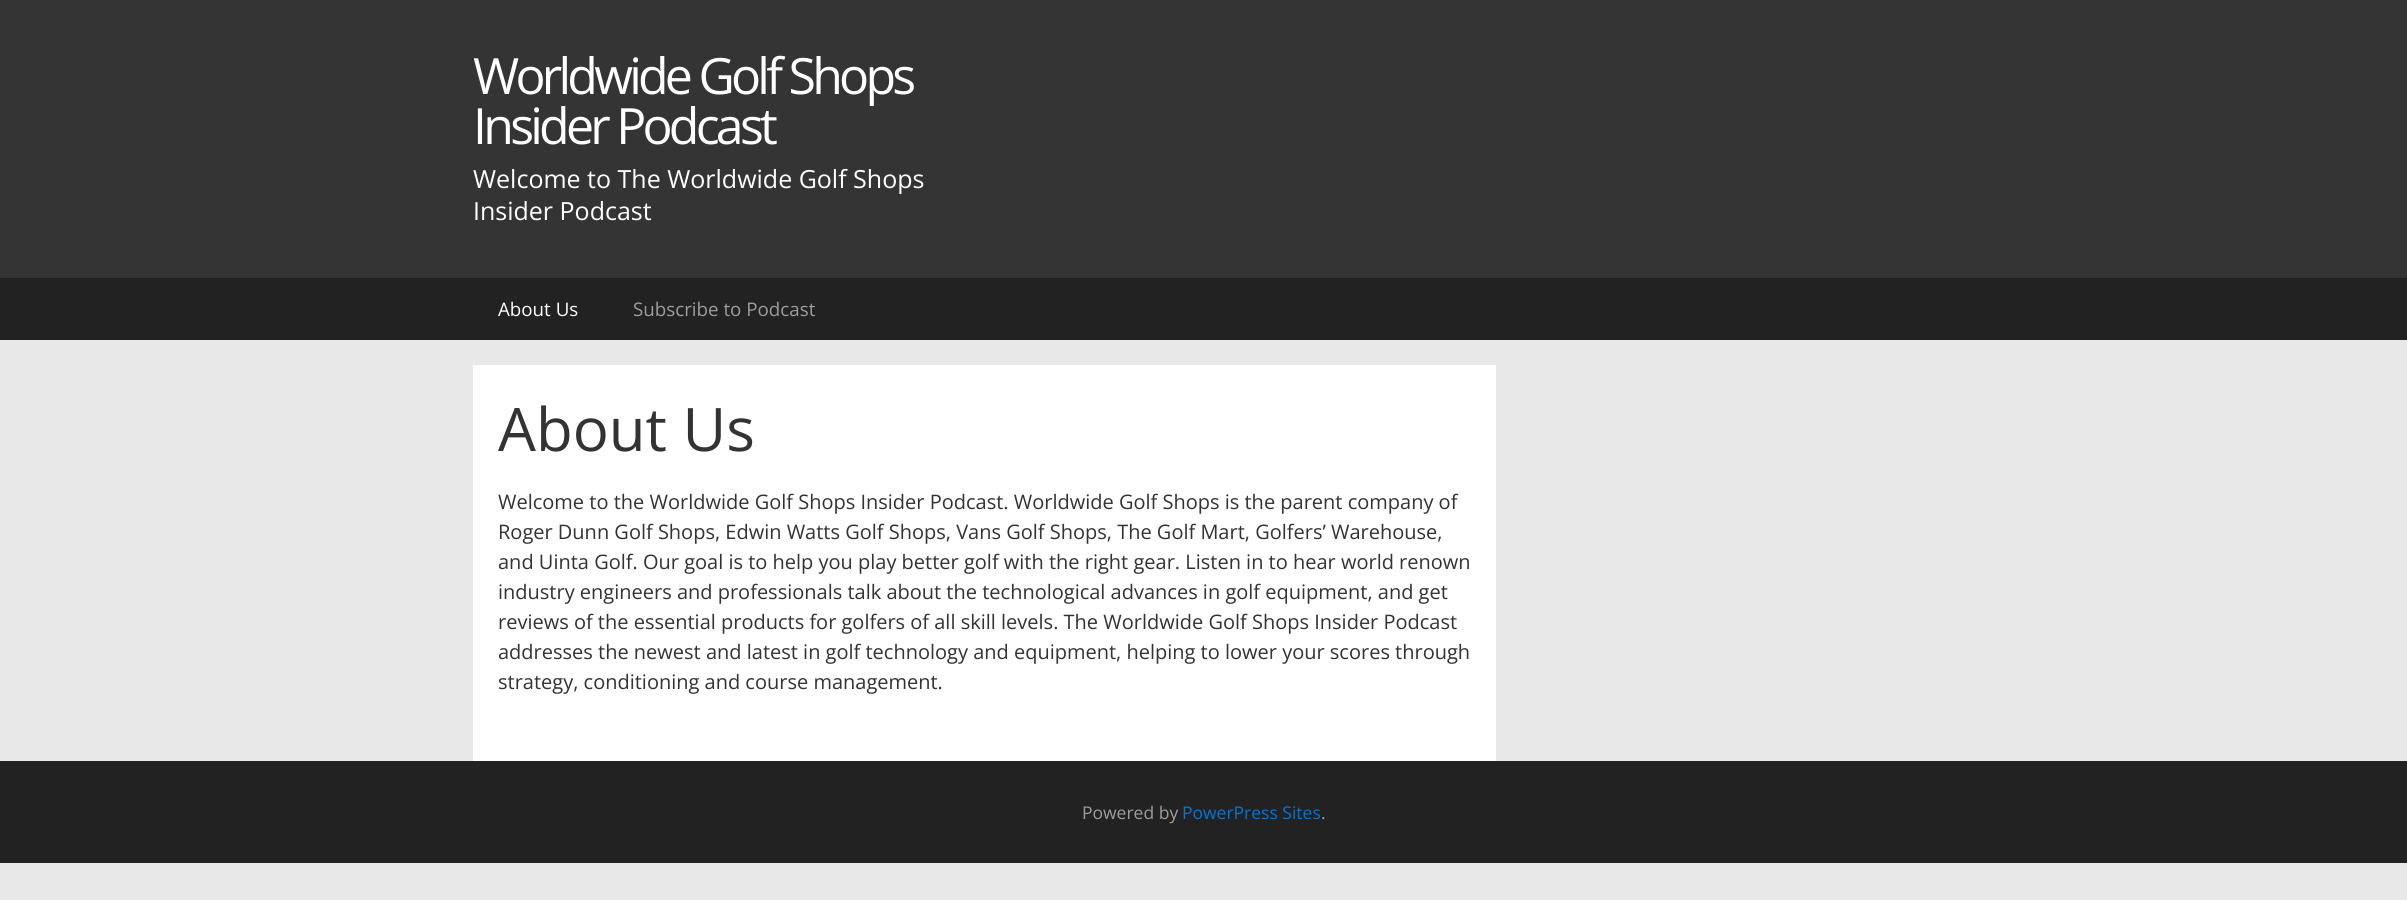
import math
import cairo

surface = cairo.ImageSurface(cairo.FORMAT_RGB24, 2407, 900)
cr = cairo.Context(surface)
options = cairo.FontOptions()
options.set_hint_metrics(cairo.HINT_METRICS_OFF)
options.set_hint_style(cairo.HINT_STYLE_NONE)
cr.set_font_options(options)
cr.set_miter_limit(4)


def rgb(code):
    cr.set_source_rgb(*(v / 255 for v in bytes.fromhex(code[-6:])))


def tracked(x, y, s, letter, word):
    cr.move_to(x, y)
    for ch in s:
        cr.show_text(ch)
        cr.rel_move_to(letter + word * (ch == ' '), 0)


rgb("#e8e8e8")
cr.paint()
for x, y, w, h, color in [
    (0, 0, 2407, 278, "#343434"),
    (0, 278, 2407, 62, "#222222"),
    (473, 365, 1023, 396, "#ffffff"),
    (0, 761, 2407, 102, "#222222"),
]:
    rgb(color)
    cr.rectangle(x, y, w, h)
    cr.fill()
cr.select_font_face("Open Sans")
cr.set_font_size(50)
rgb("#ffffff")
tracked(473, 94, "Worldwide Golf Shops", -3.75, 0)
tracked(473, 144, "Insider Podcast", -3.75, 0)
cr.set_font_size(25)
cr.move_to(473, 188)
cr.show_text("Welcome to The Worldwide Golf Shops")
cr.move_to(473, 220)
cr.show_text("Insider Podcast")
cr.set_font_size(18.75)
cr.move_to(498, 316)
cr.show_text("About Us")
rgb("#9d9d9d")
cr.move_to(633, 316)
cr.show_text("Subscribe to Podcast")
cr.set_font_size(60)
rgb("#333333")
cr.move_to(498, 451)
cr.show_text("About Us")
cr.set_font_size(20)
for x, y, s in [
    (498, 509, "Welcome to the Worldwide Golf Shops Insider Podcast. Worldwide Golf Shops is the parent company of"),
    (498, 539, "Roger Dunn Golf Shops, Edwin Watts Golf Shops, Vans Golf Shops, The Golf Mart, Golfers’ Warehouse,"),
    (498, 569, "and Uinta Golf. Our goal is to help you play better golf with the right gear. Listen in to hear world renown"),
    (498, 599, "industry engineers and professionals talk about the technological advances in golf equipment, and get"),
    (498, 629, "reviews of the essential products for golfers of all skill levels. The Worldwide Golf Shops Insider Podcast"),
    (498, 659, "addresses the newest and latest in golf technology and equipment, helping to lower your scores through"),
    (498, 689, "strategy, conditioning and course management."),
]:
    cr.move_to(x, y)
    cr.show_text(s)
cr.set_font_size(17.5)
rgb("#9d9d9d")
cr.move_to(1082, 819)
cr.show_text("Powered by")
rgb("#0275d8")
cr.move_to(1182, 819)
cr.show_text("PowerPress Sites")
rgb("#9d9d9d")
cr.move_to(1321, 819)
cr.show_text(".")
surface.write_to_png("page.png")
